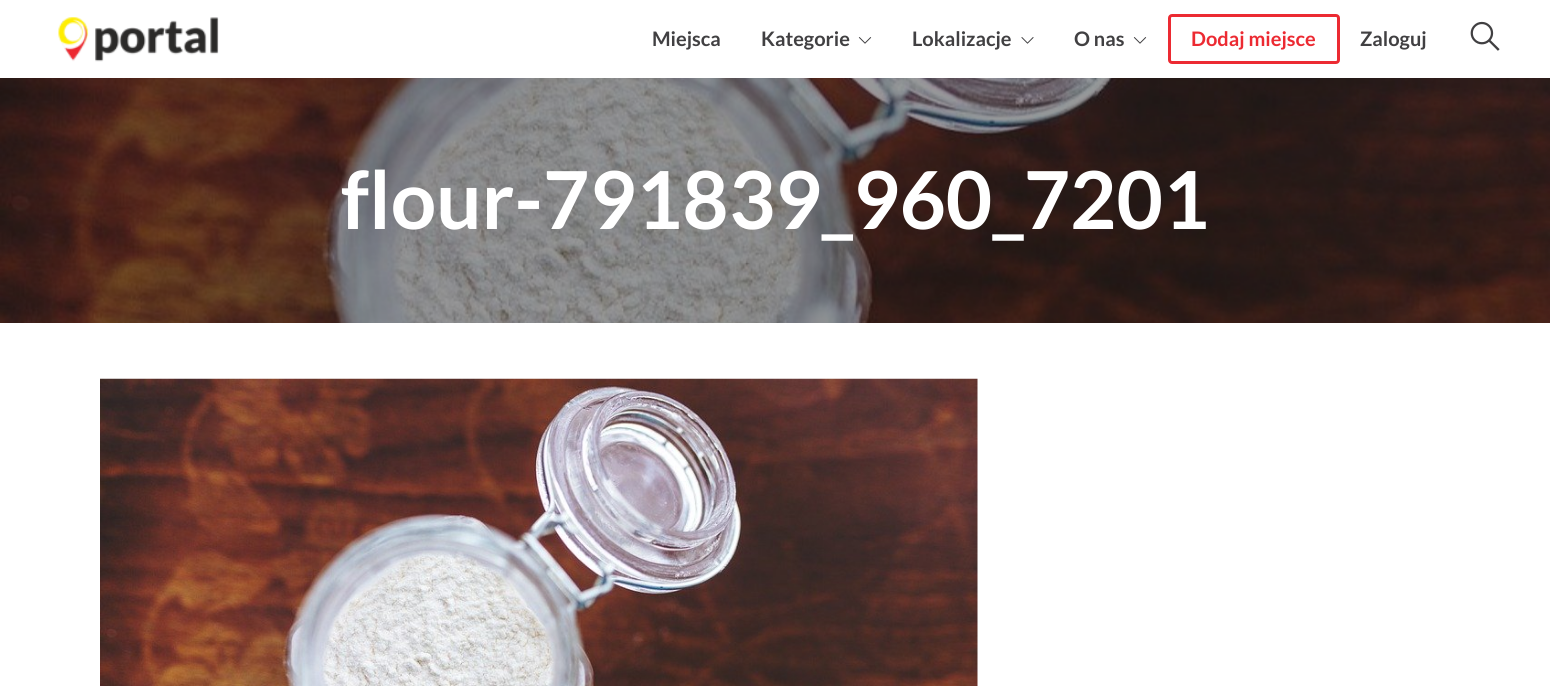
import math
import cairo

surface = cairo.ImageSurface(cairo.FORMAT_RGB24, 1550, 686)
cr = cairo.Context(surface)
options = cairo.FontOptions()
options.set_hint_metrics(cairo.HINT_METRICS_OFF)
options.set_hint_style(cairo.HINT_STYLE_NONE)
cr.set_font_options(options)
cr.set_miter_limit(4)


def rgb(code):
    cr.set_source_rgb(*(v / 255 for v in bytes.fromhex(code[-6:])))


def rrect(x, y, w, h, r):
    cr.new_sub_path()
    for i, (u, v) in enumerate([(x + w - r, y + h - r), (x + r, y + h - r), (x + r, y + r), (x + w - r, y + r)]):
        cr.arc(u, v, r, i * math.pi / 2, (i + 1) * math.pi / 2)
    cr.close_path()


def image(path, x, y, w, h):
    cr.save()
    cr.set_source_surface(cairo.ImageSurface.create_from_png(path), x, y)
    cr.rectangle(x, y, w, h)
    cr.fill()
    cr.restore()


rgb("#ffffff")
cr.paint()
image("img/1.png", 58, 17, 161, 45)
image("img/2.png", 858, 37, 14, 7)
image("img/3.png", 1021, 37, 13, 7)
image("img/2.png", 1133, 37, 14, 7)
rrect(1169.5, 15.5, 169, 47, 2.5)
rgb("#ec2a32")
cr.set_line_width(3)
cr.stroke()
image("img/4.png", 1470, 21, 30, 30)
image("img/5.png", 0, 78, 1550, 245)
image("img/6.png", 100, 378, 878, 308)
cr.select_font_face("Lato", cairo.FONT_SLANT_NORMAL, cairo.FONT_WEIGHT_BOLD)
cr.set_font_size(20)
rgb("#414042")
for x, y, s in [
    (652, 46, "Miejsca"),
    (761, 46, "Kategorie"),
    (912, 46, "Lokalizacje"),
    (1074, 46, "O nas"),
]:
    cr.move_to(x, y)
    cr.show_text(s)
rgb("#ec2a32")
cr.move_to(1191, 46)
cr.show_text("Dodaj miejsce")
rgb("#414042")
cr.move_to(1360, 46)
cr.show_text("Zaloguj")
cr.set_font_size(80)
rgb("#ffffff")
cr.move_to(341, 229)
cr.show_text("flour-791839_960_7201")
surface.write_to_png("page.png")
